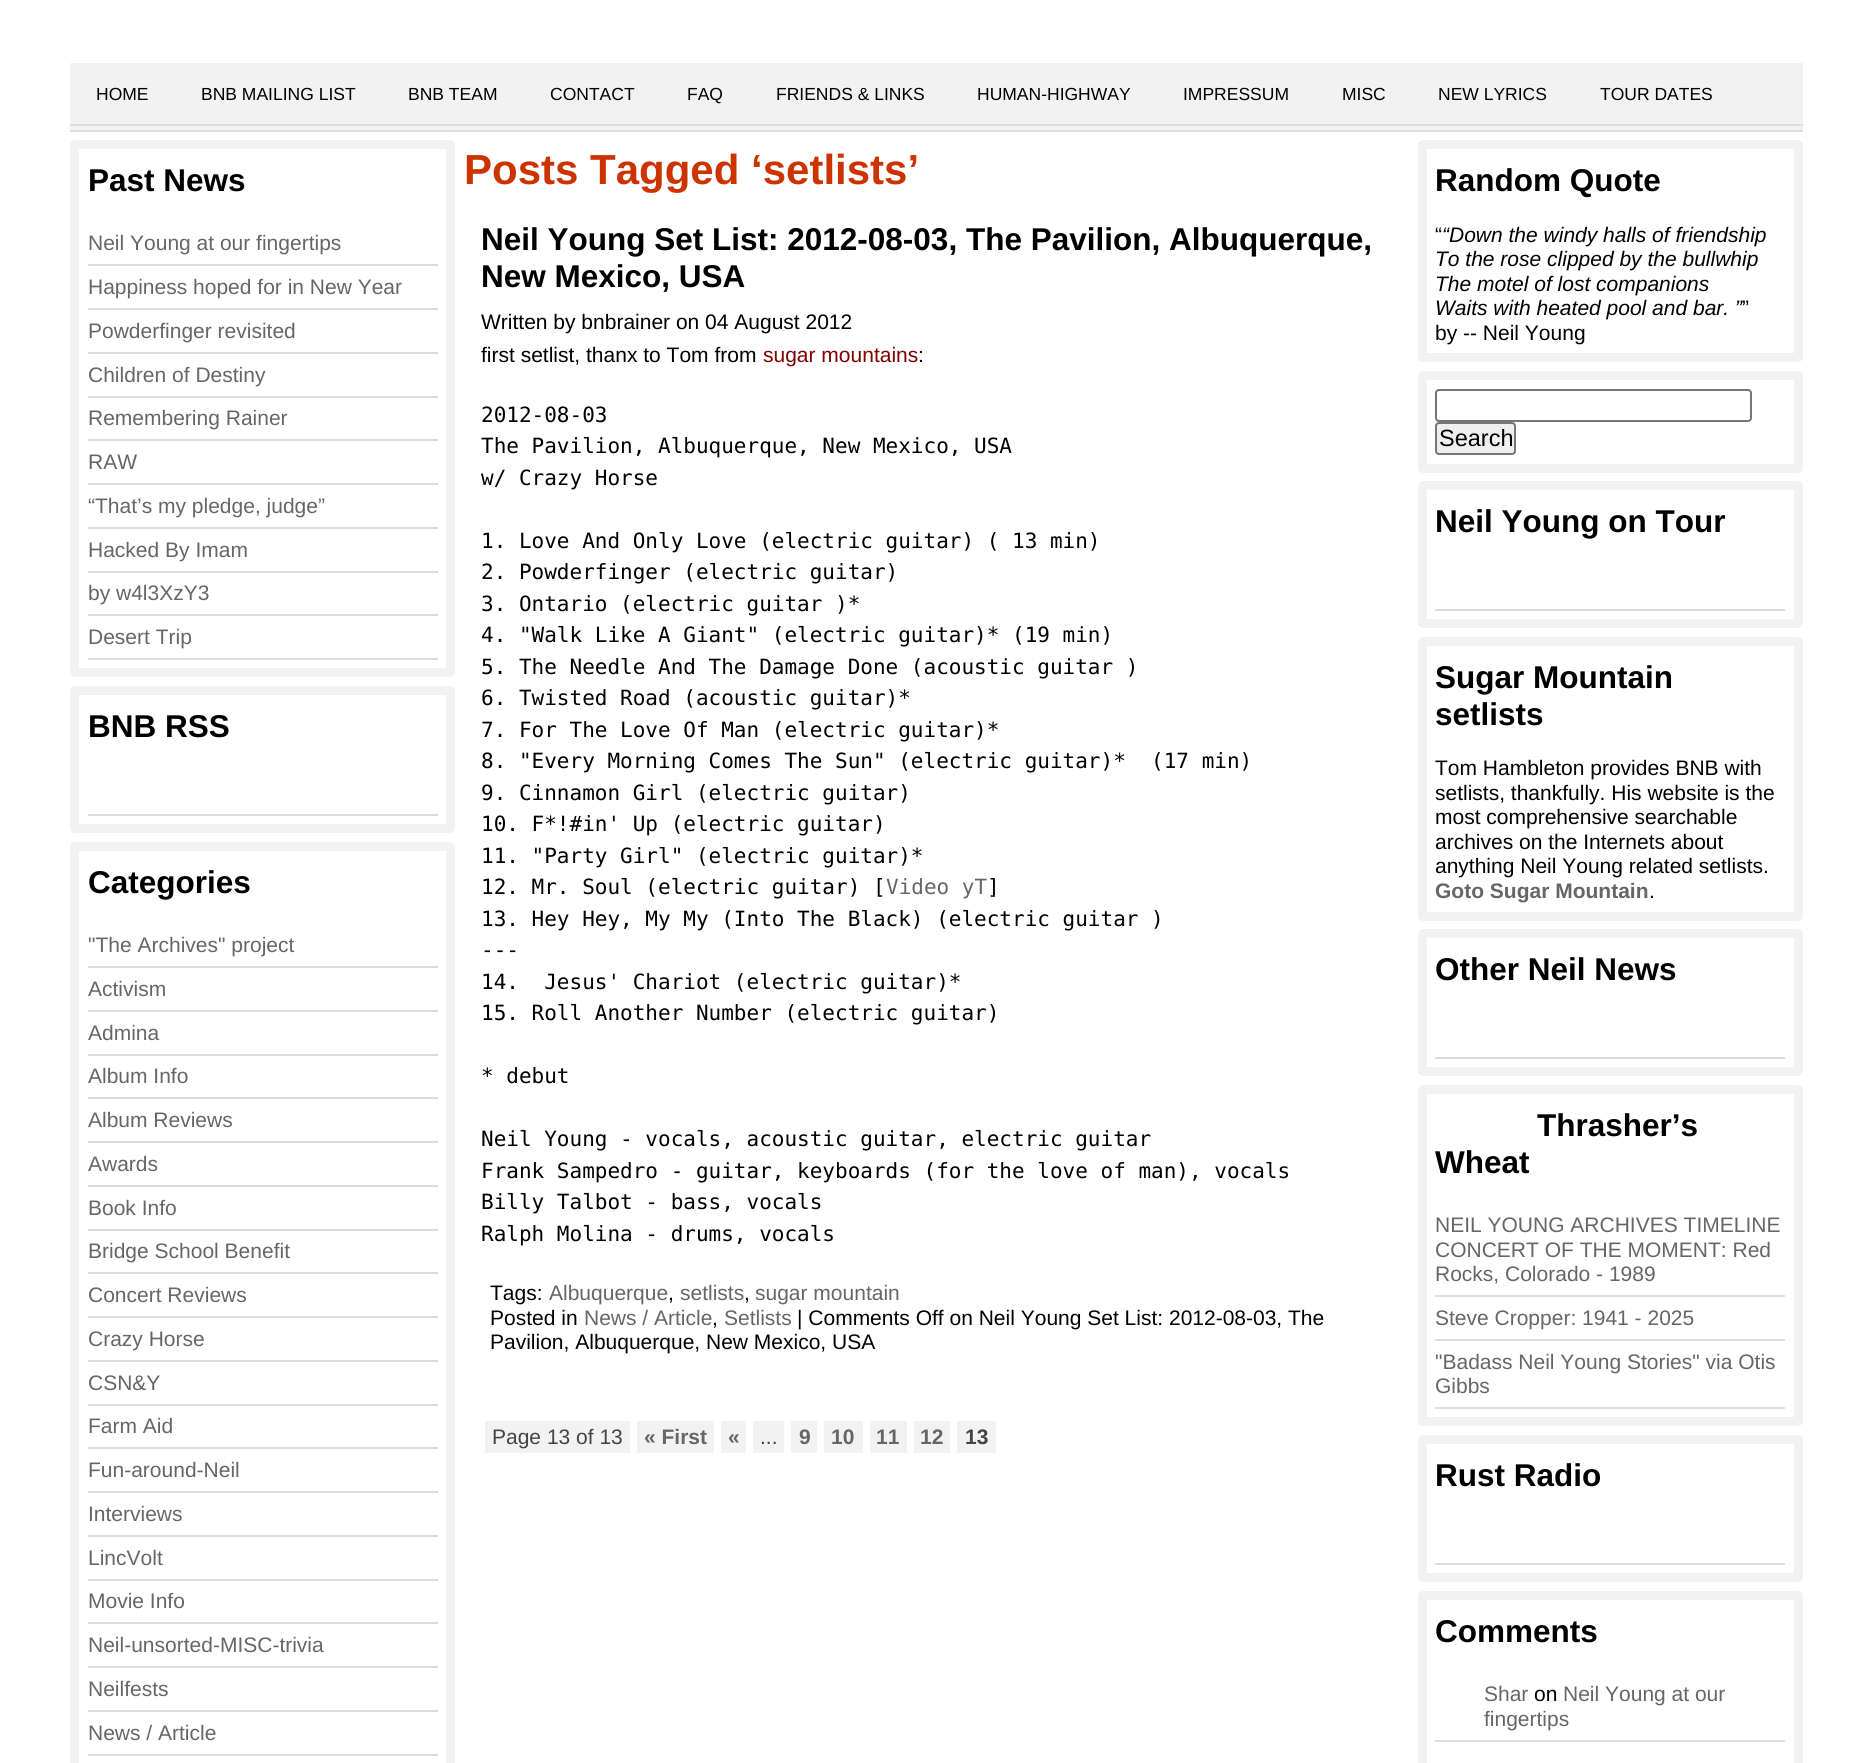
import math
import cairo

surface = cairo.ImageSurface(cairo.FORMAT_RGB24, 1872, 1763)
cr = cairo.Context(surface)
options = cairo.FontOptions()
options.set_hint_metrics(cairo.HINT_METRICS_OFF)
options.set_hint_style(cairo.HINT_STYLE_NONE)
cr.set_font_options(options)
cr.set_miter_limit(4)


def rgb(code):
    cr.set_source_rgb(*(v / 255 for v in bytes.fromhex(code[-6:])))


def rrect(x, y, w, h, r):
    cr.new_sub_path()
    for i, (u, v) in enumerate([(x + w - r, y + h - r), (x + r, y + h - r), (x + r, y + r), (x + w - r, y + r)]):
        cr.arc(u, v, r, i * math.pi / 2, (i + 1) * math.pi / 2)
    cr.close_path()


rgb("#ffffff")
cr.paint()
for x, y, w, h, color in [
    (70, 63, 1733, 67, "#f2f2f2"),
    (70, 124, 1733, 2, "#dddddd"),
    (70, 130, 1733, 2, "#dddddd"),
]:
    rgb(color)
    cr.rectangle(x, y, w, h)
    cr.fill()
rrect(74.5, 144.5, 376, 528, 0.5)
rgb("#f2f2f2")
cr.set_line_width(9)
cr.stroke()
for x, y, w, h, color in [
    (88, 264, 350, 2, "#dddddd"),
    (88, 308, 350, 2, "#dddddd"),
    (88, 352, 350, 2, "#dddddd"),
    (88, 396, 350, 2, "#dddddd"),
    (88, 439, 350, 2, "#dddddd"),
    (88, 483, 350, 2, "#dddddd"),
    (88, 527, 350, 2, "#dddddd"),
    (88, 571, 350, 2, "#dddddd"),
    (88, 614, 350, 2, "#dddddd"),
    (88, 658, 350, 2, "#dddddd"),
]:
    rgb(color)
    cr.rectangle(x, y, w, h)
    cr.fill()
rrect(74.5, 690.5, 376, 138, 0.5)
rgb("#f2f2f2")
cr.stroke()
rgb("#dddddd")
cr.rectangle(88, 814, 350, 2)
cr.fill()
rrect(74.5, 846.5, 376, 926, 0.5)
rgb("#f2f2f2")
cr.stroke()
for x, y, w, h, color in [
    (88, 966, 350, 2, "#dddddd"),
    (88, 1010, 350, 2, "#dddddd"),
    (88, 1054, 350, 2, "#dddddd"),
    (88, 1097, 350, 2, "#dddddd"),
    (88, 1141, 350, 2, "#dddddd"),
    (88, 1185, 350, 2, "#dddddd"),
    (88, 1229, 350, 2, "#dddddd"),
    (88, 1272, 350, 2, "#dddddd"),
    (88, 1316, 350, 2, "#dddddd"),
    (88, 1360, 350, 2, "#dddddd"),
    (88, 1404, 350, 2, "#dddddd"),
    (88, 1447, 350, 2, "#dddddd"),
    (88, 1491, 350, 2, "#dddddd"),
    (88, 1535, 350, 2, "#dddddd"),
    (88, 1579, 350, 2, "#dddddd"),
    (88, 1622, 350, 2, "#dddddd"),
    (88, 1666, 350, 2, "#dddddd"),
    (88, 1710, 350, 2, "#dddddd"),
    (88, 1754, 350, 2, "#dddddd"),
    (485, 1421, 145, 32, "#f2f2f2"),
    (637, 1421, 77, 32, "#f2f2f2"),
    (721, 1421, 25, 32, "#f2f2f2"),
    (753, 1421, 31, 32, "#f2f2f2"),
    (791, 1421, 26, 32, "#f2f2f2"),
    (824, 1421, 39, 32, "#f2f2f2"),
    (870, 1421, 37, 32, "#f2f2f2"),
    (914, 1421, 36, 32, "#f2f2f2"),
    (957, 1421, 39, 32, "#f2f2f2"),
]:
    rgb(color)
    cr.rectangle(x, y, w, h)
    cr.fill()
rrect(1422.5, 144.5, 376, 213, 0.5)
cr.stroke()
rrect(1422.5, 375.5, 376, 93, 0.5)
cr.stroke()
rrect(1436, 390, 315, 31, 3)
rgb("#767676")
cr.set_line_width(2)
cr.stroke()
rgb("#efefef")
rrect(1436, 423, 79, 31, 3)
cr.fill_preserve()
rgb("#767676")
cr.stroke()
rrect(1422.5, 485.5, 376, 138, 0.5)
rgb("#f2f2f2")
cr.set_line_width(9)
cr.stroke()
rgb("#dddddd")
cr.rectangle(1435, 609, 350, 2)
cr.fill()
rrect(1422.5, 641.5, 376, 275, 0.5)
rgb("#f2f2f2")
cr.stroke()
rrect(1422.5, 933.5, 376, 138, 0.5)
cr.stroke()
rgb("#dddddd")
cr.rectangle(1435, 1057, 350, 2)
cr.fill()
rrect(1422.5, 1089.5, 376, 332, 0.5)
rgb("#f2f2f2")
cr.stroke()
for x, y, w, h, color in [
    (1435, 1295, 350, 2, "#dddddd"),
    (1435, 1339, 350, 2, "#dddddd"),
    (1435, 1407, 350, 2, "#dddddd"),
]:
    rgb(color)
    cr.rectangle(x, y, w, h)
    cr.fill()
rrect(1422.5, 1439.5, 376, 138, 0.5)
rgb("#f2f2f2")
cr.stroke()
rgb("#dddddd")
cr.rectangle(1435, 1563, 350, 2)
cr.fill()
rrect(1422.5, 1595.5, 376, 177, 0.5)
rgb("#f2f2f2")
cr.stroke()
rgb("#dddddd")
cr.rectangle(1435, 1740, 350, 2)
cr.fill()
cr.select_font_face("Liberation Sans")
cr.set_font_size(17.5)
rgb("#000000")
for x, y, s in [
    (96, 100, "HOME"),
    (201, 100, "BNB MAILING LIST"),
    (408, 100, "BNB TEAM"),
    (550, 100, "CONTACT"),
    (687, 100, "FAQ"),
    (776, 100, "FRIENDS & LINKS"),
    (977, 100, "HUMAN-HIGHWAY"),
    (1183, 100, "IMPRESSUM"),
    (1342, 100, "MISC"),
    (1438, 100, "NEW LYRICS"),
    (1600, 100, "TOUR DATES"),
]:
    cr.move_to(x, y)
    cr.show_text(s)
cr.select_font_face("Liberation Sans", cairo.FONT_SLANT_NORMAL, cairo.FONT_WEIGHT_BOLD)
cr.set_font_size(31.5)
cr.move_to(88, 191)
cr.show_text("Past News")
cr.select_font_face("Liberation Sans")
cr.set_font_size(21)
rgb("#666666")
for x, y, s in [
    (88, 250, "Neil Young at our fingertips"),
    (88, 294, "Happiness hoped for in New Year"),
    (88, 338, "Powderfinger revisited"),
    (88, 382, "Children of Destiny"),
    (88, 425, "Remembering Rainer"),
    (88, 469, "RAW"),
    (88, 513, "“That’s my pledge, judge”"),
    (88, 557, "Hacked By Imam"),
    (88, 600, "by w4l3XzY3"),
    (88, 644, "Desert Trip"),
]:
    cr.move_to(x, y)
    cr.show_text(s)
cr.select_font_face("Liberation Sans", cairo.FONT_SLANT_NORMAL, cairo.FONT_WEIGHT_BOLD)
cr.set_font_size(31.5)
rgb("#000000")
cr.move_to(88, 737)
cr.show_text("BNB RSS")
cr.move_to(88, 893)
cr.show_text("Categories")
cr.select_font_face("Liberation Sans")
cr.set_font_size(21)
rgb("#666666")
for x, y, s in [
    (88, 952, "\"The Archives\" project"),
    (88, 996, "Activism"),
    (88, 1040, "Admina"),
    (88, 1083, "Album Info"),
    (88, 1127, "Album Reviews"),
    (88, 1171, "Awards"),
    (88, 1215, "Book Info"),
    (88, 1258, "Bridge School Benefit"),
    (88, 1302, "Concert Reviews"),
    (88, 1346, "Crazy Horse"),
    (88, 1390, "CSN&Y"),
    (88, 1433, "Farm Aid"),
    (88, 1477, "Fun-around-Neil"),
    (88, 1521, "Interviews"),
    (88, 1565, "LincVolt"),
    (88, 1608, "Movie Info"),
    (88, 1652, "Neil-unsorted-MISC-trivia"),
    (88, 1696, "Neilfests"),
    (88, 1740, "News / Article"),
]:
    cr.move_to(x, y)
    cr.show_text(s)
cr.select_font_face("Liberation Sans", cairo.FONT_SLANT_NORMAL, cairo.FONT_WEIGHT_BOLD)
cr.set_font_size(42)
rgb("#cc3300")
cr.move_to(464, 184)
cr.show_text("Posts Tagged ‘setlists’")
cr.set_font_size(31.5)
rgb("#000000")
cr.move_to(481, 250)
cr.show_text("Neil Young Set List: 2012-08-03, The Pavilion, Albuquerque,")
cr.move_to(481, 287)
cr.show_text("New Mexico, USA")
cr.select_font_face("Liberation Sans")
cr.set_font_size(21)
cr.move_to(481, 329)
cr.show_text("Written by bnbrainer on 04 August 2012")
cr.move_to(481, 362)
cr.show_text("first setlist, thanx to Tom from")
rgb("#800000")
cr.move_to(763, 362)
cr.show_text("sugar mountains")
rgb("#000000")
cr.move_to(918, 362)
cr.show_text(":")
cr.select_font_face("DejaVu Sans Mono")
for x, y, s in [
    (481, 422, "2012-08-03"),
    (481, 453, "The Pavilion, Albuquerque, New Mexico, USA"),
    (481, 485, "w/ Crazy Horse"),
    (481, 548, "1. Love And Only Love (electric guitar) ( 13 min)"),
    (481, 579, "2. Powderfinger (electric guitar)"),
    (481, 611, "3. Ontario (electric guitar )*"),
    (481, 642, "4. \"Walk Like A Giant\" (electric guitar)* (19 min)"),
    (481, 674, "5. The Needle And The Damage Done (acoustic guitar )"),
    (481, 705, "6. Twisted Road (acoustic guitar)*"),
    (481, 737, "7. For The Love Of Man (electric guitar)*"),
    (481, 768, "8. \"Every Morning Comes The Sun\" (electric guitar)*  (17 min)"),
    (481, 800, "9. Cinnamon Girl (electric guitar)"),
    (481, 831, "10. F*!#in' Up (electric guitar)"),
    (481, 863, "11. \"Party Girl\" (electric guitar)*"),
    (481, 894, "12. Mr. Soul (electric guitar) ["),
]:
    cr.move_to(x, y)
    cr.show_text(s)
rgb("#666666")
cr.move_to(886, 894)
cr.show_text("Video yT")
rgb("#000000")
for x, y, s in [
    (987, 894, "]"),
    (481, 926, "13. Hey Hey, My My (Into The Black) (electric guitar )"),
    (481, 957, "---"),
    (481, 989, "14.  Jesus' Chariot (electric guitar)*"),
    (481, 1020, "15. Roll Another Number (electric guitar)"),
    (481, 1083, "* debut"),
    (481, 1146, "Neil Young - vocals, acoustic guitar, electric guitar"),
    (481, 1178, "Frank Sampedro - guitar, keyboards (for the love of man), vocals"),
    (481, 1209, "Billy Talbot - bass, vocals"),
    (481, 1241, "Ralph Molina - drums, vocals"),
]:
    cr.move_to(x, y)
    cr.show_text(s)
cr.select_font_face("Liberation Sans")
cr.move_to(490, 1300)
cr.show_text("Tags:")
rgb("#666666")
cr.move_to(549, 1300)
cr.show_text("Albuquerque")
rgb("#000000")
cr.move_to(668, 1300)
cr.show_text(",")
rgb("#666666")
cr.move_to(680, 1300)
cr.show_text("setlists")
rgb("#000000")
cr.move_to(744, 1300)
cr.show_text(",")
rgb("#666666")
cr.move_to(755, 1300)
cr.show_text("sugar mountain")
rgb("#000000")
cr.move_to(490, 1325)
cr.show_text("Posted in")
rgb("#666666")
cr.move_to(584, 1325)
cr.show_text("News / Article")
rgb("#000000")
cr.move_to(712, 1325)
cr.show_text(",")
rgb("#666666")
cr.move_to(724, 1325)
cr.show_text("Setlists")
rgb("#000000")
cr.move_to(797, 1325)
cr.show_text("| Comments Off on Neil Young Set List: 2012-08-03, The")
cr.move_to(490, 1349)
cr.show_text("Pavilion, Albuquerque, New Mexico, USA")
rgb("#444444")
cr.move_to(492, 1444)
cr.show_text("Page 13 of 13")
cr.select_font_face("Liberation Sans", cairo.FONT_SLANT_NORMAL, cairo.FONT_WEIGHT_BOLD)
rgb("#666666")
cr.move_to(644, 1444)
cr.show_text("« First")
cr.move_to(728, 1444)
cr.show_text("«")
cr.select_font_face("Liberation Sans")
rgb("#444444")
cr.move_to(760, 1444)
cr.show_text("...")
cr.select_font_face("Liberation Sans", cairo.FONT_SLANT_NORMAL, cairo.FONT_WEIGHT_BOLD)
rgb("#666666")
for x, y, s in [
    (799, 1444, "9"),
    (831, 1444, "10"),
    (876, 1444, "11"),
    (920, 1444, "12"),
]:
    cr.move_to(x, y)
    cr.show_text(s)
rgb("#444444")
cr.move_to(965, 1444)
cr.show_text("13")
cr.set_font_size(31.5)
rgb("#000000")
cr.move_to(1435, 191)
cr.show_text("Random Quote")
cr.select_font_face("Liberation Sans")
cr.set_font_size(21)
cr.move_to(1435, 242)
cr.show_text("“")
cr.select_font_face("Liberation Sans", cairo.FONT_SLANT_ITALIC)
for x, y, s in [
    (1442, 242, "“Down the windy halls of friendship"),
    (1435, 266, "To the rose clipped by the bullwhip"),
    (1435, 291, "The motel of lost companions"),
    (1435, 315, "Waits with heated pool and bar. ”"),
]:
    cr.move_to(x, y)
    cr.show_text(s)
cr.select_font_face("Liberation Sans")
cr.move_to(1742, 315)
cr.show_text("”")
cr.move_to(1435, 340)
cr.show_text("by -- Neil Young")
cr.set_font_size(23.5)
cr.move_to(1439, 446)
cr.show_text("Search")
cr.select_font_face("Liberation Sans", cairo.FONT_SLANT_NORMAL, cairo.FONT_WEIGHT_BOLD)
cr.set_font_size(31.5)
for x, y, s in [
    (1435, 532, "Neil Young on Tour"),
    (1435, 688, "Sugar Mountain"),
    (1435, 725, "setlists"),
]:
    cr.move_to(x, y)
    cr.show_text(s)
cr.select_font_face("Liberation Sans")
cr.set_font_size(21)
for x, y, s in [
    (1435, 775, "Tom Hambleton provides BNB with"),
    (1435, 800, "setlists, thankfully. His website is the"),
    (1435, 824, "most comprehensive searchable"),
    (1435, 849, "archives on the Internets about"),
    (1435, 873, "anything Neil Young related setlists."),
]:
    cr.move_to(x, y)
    cr.show_text(s)
cr.select_font_face("Liberation Sans", cairo.FONT_SLANT_NORMAL, cairo.FONT_WEIGHT_BOLD)
rgb("#666666")
cr.move_to(1435, 898)
cr.show_text("Goto Sugar Mountain")
cr.select_font_face("Liberation Sans")
rgb("#000000")
cr.move_to(1649, 898)
cr.show_text(".")
cr.select_font_face("Liberation Sans", cairo.FONT_SLANT_NORMAL, cairo.FONT_WEIGHT_BOLD)
cr.set_font_size(31.5)
for x, y, s in [
    (1435, 980, "Other Neil News"),
    (1537, 1136, "Thrasher’s"),
    (1435, 1173, "Wheat"),
]:
    cr.move_to(x, y)
    cr.show_text(s)
cr.select_font_face("Liberation Sans")
cr.set_font_size(21)
rgb("#666666")
for x, y, s in [
    (1435, 1232, "NEIL YOUNG ARCHIVES TIMELINE"),
    (1435, 1257, "CONCERT OF THE MOMENT: Red"),
    (1435, 1281, "Rocks, Colorado - 1989"),
    (1435, 1325, "Steve Cropper: 1941 - 2025"),
    (1435, 1369, "\"Badass Neil Young Stories\" via Otis"),
    (1435, 1393, "Gibbs"),
]:
    cr.move_to(x, y)
    cr.show_text(s)
cr.select_font_face("Liberation Sans", cairo.FONT_SLANT_NORMAL, cairo.FONT_WEIGHT_BOLD)
cr.set_font_size(31.5)
rgb("#000000")
cr.move_to(1435, 1486)
cr.show_text("Rust Radio")
cr.move_to(1435, 1642)
cr.show_text("Comments")
cr.select_font_face("Liberation Sans")
cr.set_font_size(21)
rgb("#666666")
cr.move_to(1484, 1701)
cr.show_text("Shar")
rgb("#000000")
cr.move_to(1534, 1701)
cr.show_text("on")
rgb("#666666")
cr.move_to(1563, 1701)
cr.show_text("Neil Young at our")
cr.move_to(1484, 1726)
cr.show_text("fingertips")
surface.write_to_png("page.png")
